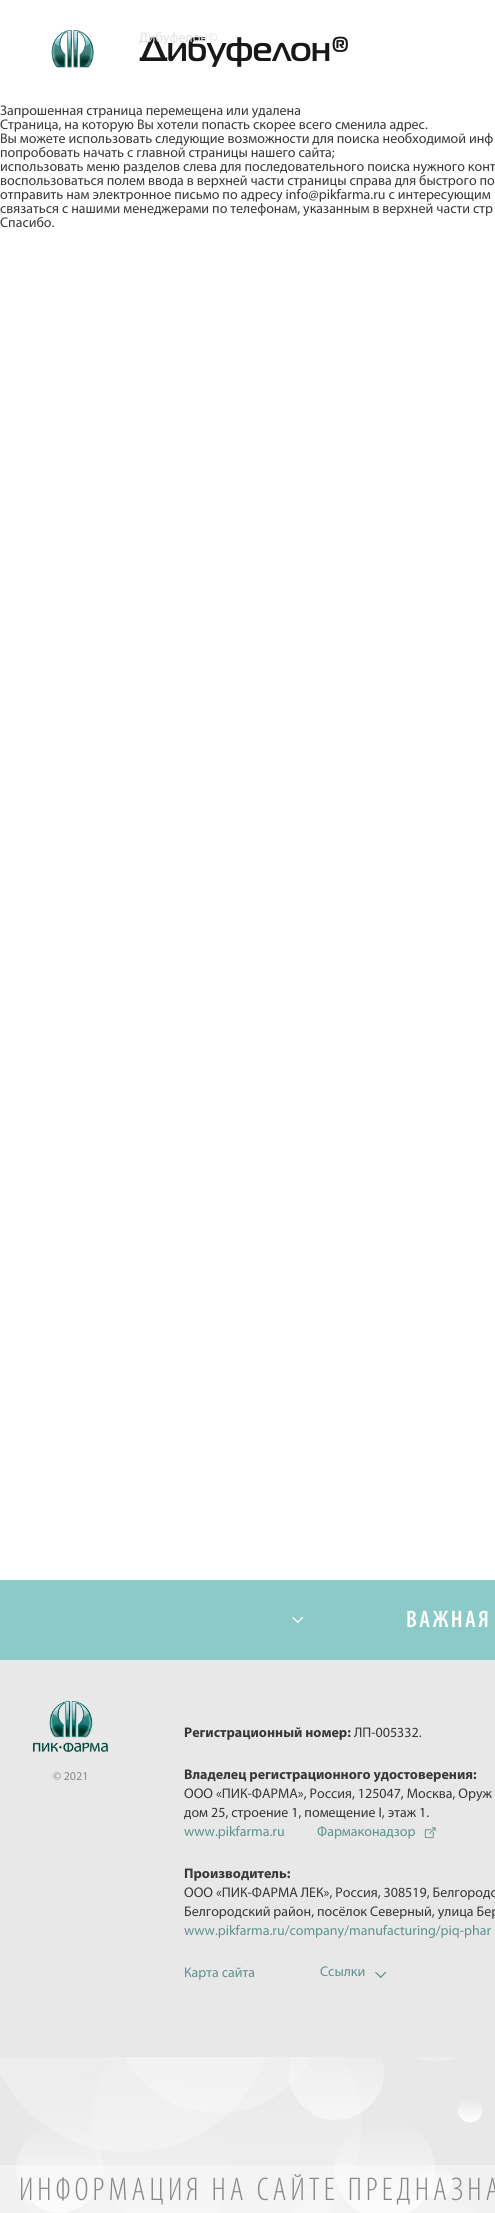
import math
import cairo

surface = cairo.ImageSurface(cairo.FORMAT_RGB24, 495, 2213)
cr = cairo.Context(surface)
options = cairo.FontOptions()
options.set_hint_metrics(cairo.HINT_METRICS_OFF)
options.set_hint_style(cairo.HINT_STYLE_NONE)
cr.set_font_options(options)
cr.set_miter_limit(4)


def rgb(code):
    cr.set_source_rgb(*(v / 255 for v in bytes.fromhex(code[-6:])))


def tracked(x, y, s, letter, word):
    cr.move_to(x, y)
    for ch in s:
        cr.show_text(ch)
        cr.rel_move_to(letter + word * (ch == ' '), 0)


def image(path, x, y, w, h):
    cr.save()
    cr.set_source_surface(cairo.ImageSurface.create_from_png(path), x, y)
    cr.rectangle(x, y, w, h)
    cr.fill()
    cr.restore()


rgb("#e8e8e8")
cr.paint()
image("img/1.png", 0, 2057, 483, 156)
rgb("#ffffff")
cr.rectangle(0, 0, 495, 1580)
cr.fill()
image("img/2.png", 51, 30, 43, 38)
image("img/3.png", 139, 36, 209, 31)
rgb("#8bcac7")
cr.rectangle(0, 1580, 495, 80)
cr.fill()
image("img/4.png", 292, 1617, 11, 6)
image("img/5.png", 33, 1701, 75, 51)
image("img/6.png", 424, 1827, 12, 12)
image("img/7.png", 375, 1971, 11, 7)
cr.set_source_rgba(1, 1, 1, 0.38)
cr.rectangle(0, 2165, 495, 48)
cr.fill()
cr.select_font_face("Myriad")
cr.set_font_size(14)
rgb("#e1e1e1")
cr.move_to(139, 42)
cr.show_text("Дибуфелон©")
rgb("#383838")
for x, y, s in [
    (0, 115, "Запрошенная страница перемещена или удалена"),
    (0, 129, "Страница, на которую Вы хотели попасть скорее всего сменила адрес."),
    (0, 143, "Вы можете использовать следующие возможности для поиска необходимой инф"),
    (0, 157, "попробовать начать с главной страницы нашего сайта;"),
    (0, 171, "использовать меню разделов слева для последовательного поиска нужного конт"),
    (0, 185, "воспользоваться полем ввода в верхней части страницы справа для быстрого по"),
    (0, 199, "отправить нам электронное письмо по адресу info@pikfarma.ru с интересующим"),
    (0, 213, "связаться с нашими менеджерами по телефонам, указанным в верхней части стр"),
    (0, 227, "Спасибо."),
]:
    cr.move_to(x, y)
    cr.show_text(s)
cr.select_font_face("Myriad SemiBold")
cr.set_font_size(24)
rgb("#ffffff")
tracked(406, 1627, "ВАЖНАЯ", 2.5, 0)
cr.select_font_face("Myriad")
cr.set_font_size(12)
rgb("#888888")
cr.move_to(53, 1780)
cr.show_text("© 2021")
cr.select_font_face("Myriad", cairo.FONT_SLANT_NORMAL, cairo.FONT_WEIGHT_BOLD)
cr.set_font_size(14)
rgb("#383838")
cr.move_to(184, 1737)
cr.show_text("Регистрационный номер:")
cr.select_font_face("Myriad")
cr.move_to(354, 1737)
cr.show_text("ЛП-005332.")
cr.select_font_face("Myriad", cairo.FONT_SLANT_NORMAL, cairo.FONT_WEIGHT_BOLD)
cr.move_to(184, 1779)
cr.show_text("Владелец регистрационного удостоверения:")
cr.select_font_face("Myriad")
cr.move_to(184, 1798)
cr.show_text("ООО «ПИК-ФАРМА», Россия, 125047, Москва, Оруж")
cr.move_to(184, 1817)
cr.show_text("дом 25, строение 1, помещение I, этаж 1.")
rgb("#5e918f")
cr.move_to(184, 1836)
cr.show_text("www.pikfarma.ru")
cr.move_to(317, 1836)
cr.show_text("Фармаконадзор")
cr.select_font_face("Myriad", cairo.FONT_SLANT_NORMAL, cairo.FONT_WEIGHT_BOLD)
rgb("#383838")
cr.move_to(184, 1878)
cr.show_text("Производитель:")
cr.select_font_face("Myriad")
cr.move_to(184, 1897)
cr.show_text("ООО «ПИК-ФАРМА ЛЕК», Россия, 308519, Белгородс")
cr.move_to(184, 1916)
cr.show_text("Белгородский район, посёлок Северный, улица Бер")
rgb("#5e918f")
for x, y, s in [
    (184, 1935, "www.pikfarma.ru/company/manufacturing/piq-phar"),
    (184, 1977, "Карта сайта"),
    (320, 1976, "Ссылки"),
]:
    cr.move_to(x, y)
    cr.show_text(s)
cr.select_font_face("Myriad Light")
cr.set_font_size(33)
rgb("#888888")
tracked(19, 2200, "ИНФОРМАЦИЯ НА САЙТЕ ПРЕДНАЗНА", 4, 0)
surface.write_to_png("page.png")
